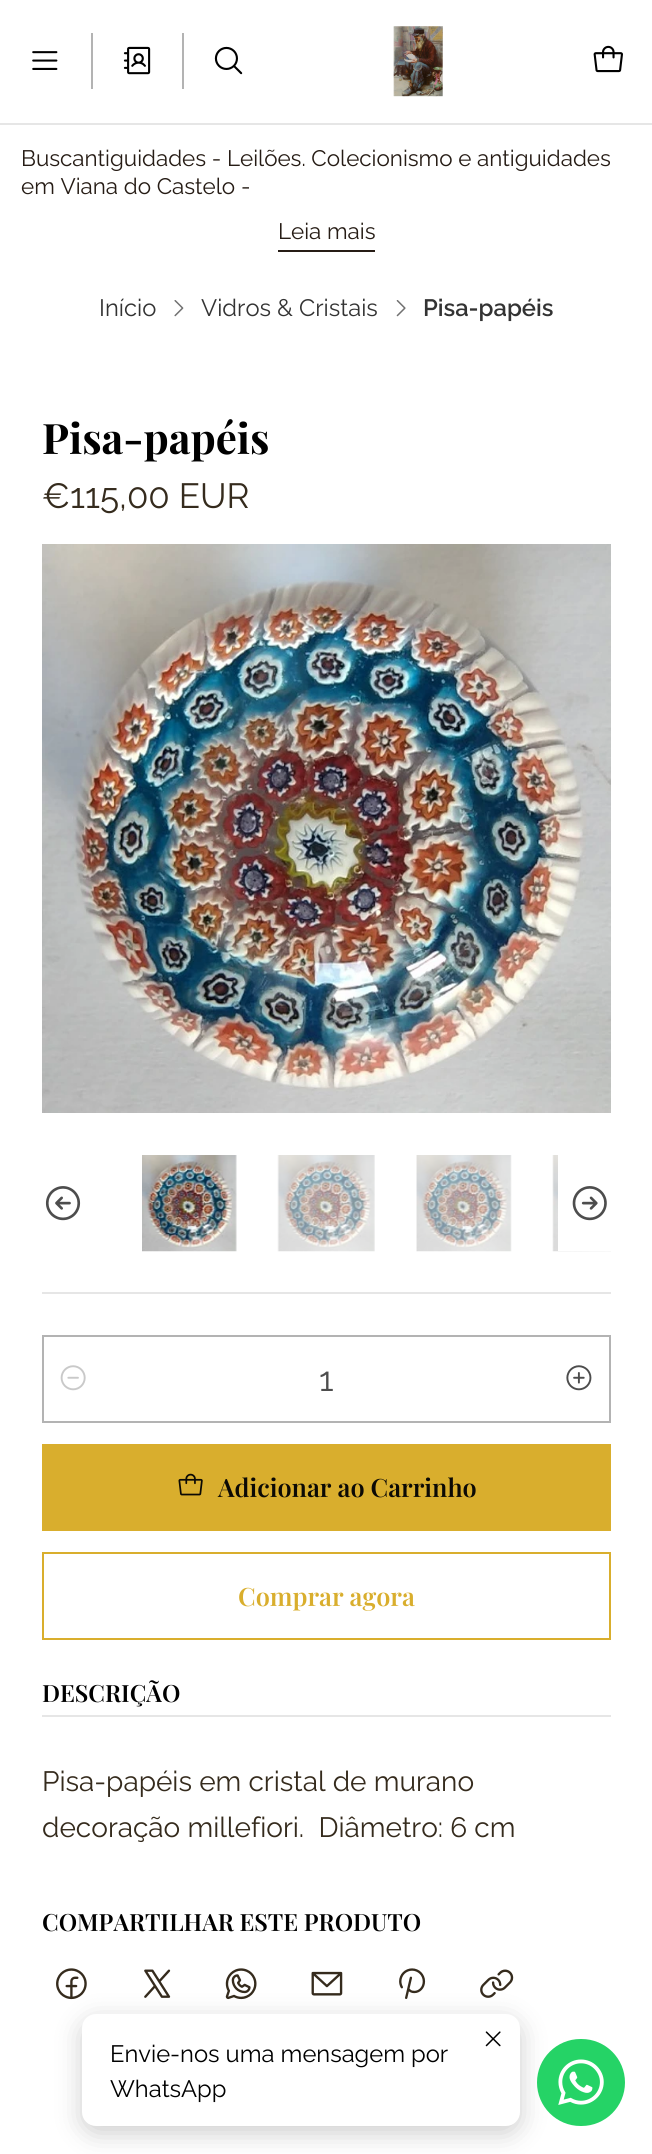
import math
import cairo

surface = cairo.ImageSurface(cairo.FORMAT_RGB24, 652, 2154)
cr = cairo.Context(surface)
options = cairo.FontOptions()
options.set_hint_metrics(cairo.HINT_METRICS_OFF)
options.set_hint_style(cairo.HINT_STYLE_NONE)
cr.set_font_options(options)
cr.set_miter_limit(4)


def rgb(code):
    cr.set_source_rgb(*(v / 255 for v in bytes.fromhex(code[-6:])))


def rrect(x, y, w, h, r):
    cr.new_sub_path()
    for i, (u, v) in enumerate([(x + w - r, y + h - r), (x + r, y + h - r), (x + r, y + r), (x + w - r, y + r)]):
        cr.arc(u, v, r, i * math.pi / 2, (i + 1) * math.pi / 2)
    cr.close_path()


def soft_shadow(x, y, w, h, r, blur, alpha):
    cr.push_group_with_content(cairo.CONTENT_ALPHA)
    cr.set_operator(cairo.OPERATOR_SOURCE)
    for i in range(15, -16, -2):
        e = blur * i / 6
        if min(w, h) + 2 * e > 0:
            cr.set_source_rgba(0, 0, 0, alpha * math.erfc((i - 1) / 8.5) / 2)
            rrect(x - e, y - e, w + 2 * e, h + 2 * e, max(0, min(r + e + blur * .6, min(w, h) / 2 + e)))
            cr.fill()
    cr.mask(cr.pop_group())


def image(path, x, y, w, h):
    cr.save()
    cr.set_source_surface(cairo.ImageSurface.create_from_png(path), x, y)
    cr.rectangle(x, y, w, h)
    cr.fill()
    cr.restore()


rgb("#ffffff")
cr.paint()
rgb("#e6e6e6")
cr.rectangle(0, 123, 652, 2)
cr.fill()
image("img/1.png", 32, 51, 26, 19)
rgb("#b3b3b3")
cr.rectangle(91, 33, 2, 56)
cr.fill()
image("img/2.png", 123, 46, 28, 29)
cr.rectangle(182, 33, 2, 56)
cr.fill()
image("img/3.png", 214, 46, 29, 29)
image("img/4.png", 393, 26, 50, 71)
image("img/5.png", 593, 45, 30, 28)
rgb("#261c15")
cr.rectangle(278, 250, 97, 2)
cr.fill()
image("img/6.png", 174, 300, 10, 17)
image("img/7.png", 396, 300, 10, 17)
image("img/8.png", 42, 544, 569, 569)
image("img/9.png", 142, 1155, 95, 97)
image("img/10.png", 277, 1155, 98, 97)
image("img/11.png", 416, 1155, 96, 97)
image("img/12.png", 552, 1155, 59, 97)
image("img/13.png", 45, 1186, 36, 35)
rgb("#ffffff")
cr.rectangle(558, 1155, 53, 96)
cr.fill()
image("img/14.png", 572, 1186, 35, 35)
rgb("#e6e6e6")
cr.rectangle(42, 1292, 569, 2)
cr.fill()
cr.rectangle(43, 1336, 567, 86)
rgb("#b3b3b3")
cr.stroke()
image("img/15.png", 60, 1365, 26, 26)
image("img/16.png", 566, 1365, 26, 26)
rgb("#d9ae2d")
cr.rectangle(42, 1444, 569, 87)
cr.fill()
image("img/17.png", 178, 1473, 25, 23)
cr.rectangle(43, 1553, 567, 86)
cr.stroke()
rgb("#e6e6e6")
cr.rectangle(42, 1715, 569, 2)
cr.fill()
image("img/18.png", 56, 1968, 31, 32)
image("img/19.png", 144, 1969, 27, 29)
image("img/20.png", 225, 1968, 32, 32)
image("img/21.png", 311, 1971, 32, 25)
image("img/22.png", 399, 1968, 27, 31)
image("img/23.png", 480, 1969, 34, 29)
rgb("#000000")
soft_shadow(82, 2021, 438, 112, 14, 13, 0.2)
rgb("#ffffff")
rrect(82, 2014, 438, 112, 14)
cr.fill()
image("img/24.png", 485, 2031, 16, 16)
rgb("#25d366")
rrect(537, 2039, 88, 87, 43.5)
cr.fill()
image("img/25.png", 558, 2059, 46, 46)
cr.select_font_face("Raleway")
cr.set_font_size(22.4)
rgb("#261c15")
for x, y, s in [
    (21, 166, "Buscantiguidades - Leilões. Colecionismo e antiguidades"),
    (21, 194, "em Viana do Castelo -"),
    (278, 239, "Leia mais"),
]:
    cr.move_to(x, y)
    cr.show_text(s)
cr.set_font_size(23.75)
rgb("#333333")
cr.move_to(99, 316)
cr.show_text("Início")
cr.move_to(201, 316)
cr.show_text("Vidros & Cristais")
cr.select_font_face("Raleway SemiBold")
cr.move_to(423, 316)
cr.show_text("Pisa-papéis")
cr.select_font_face("Playfair Display", cairo.FONT_SLANT_NORMAL, cairo.FONT_WEIGHT_BOLD)
cr.set_font_size(42)
rgb("#000000")
cr.move_to(42, 454)
cr.show_text("Pisa-papéis")
cr.select_font_face("Raleway")
cr.set_font_size(35)
rgb("#352b1d")
cr.move_to(42, 508)
cr.show_text("€115,00 EUR")
cr.set_font_size(34)
rgb("#4d4d4d")
cr.move_to(319, 1391)
cr.show_text("1")
cr.select_font_face("Playfair Display SemiBold")
cr.set_font_size(25.25)
rgb("#0c0a05")
cr.move_to(218, 1497)
cr.show_text("Adicionar ao Carrinho")
rgb("#d9ae2d")
cr.move_to(238, 1606)
cr.show_text("Comprar agora")
cr.set_font_size(23.75)
rgb("#000000")
cr.move_to(42, 1702)
cr.show_text("DESCRIÇÃO")
cr.select_font_face("Raleway")
cr.set_font_size(28)
rgb("#352b1d")
cr.move_to(42, 1791)
cr.show_text("Pisa-papéis em cristal de murano")
cr.move_to(42, 1837)
cr.show_text("decoração millefiori.  Diâmetro: 6 cm")
cr.select_font_face("Playfair Display SemiBold")
cr.set_font_size(23.75)
rgb("#000000")
cr.move_to(42, 1931)
cr.show_text("COMPARTILHAR ESTE PRODUTO")
cr.select_font_face("Raleway")
cr.move_to(110, 2062)
cr.show_text("Envie-nos uma mensagem por")
cr.move_to(110, 2097)
cr.show_text("WhatsApp")
surface.write_to_png("page.png")
